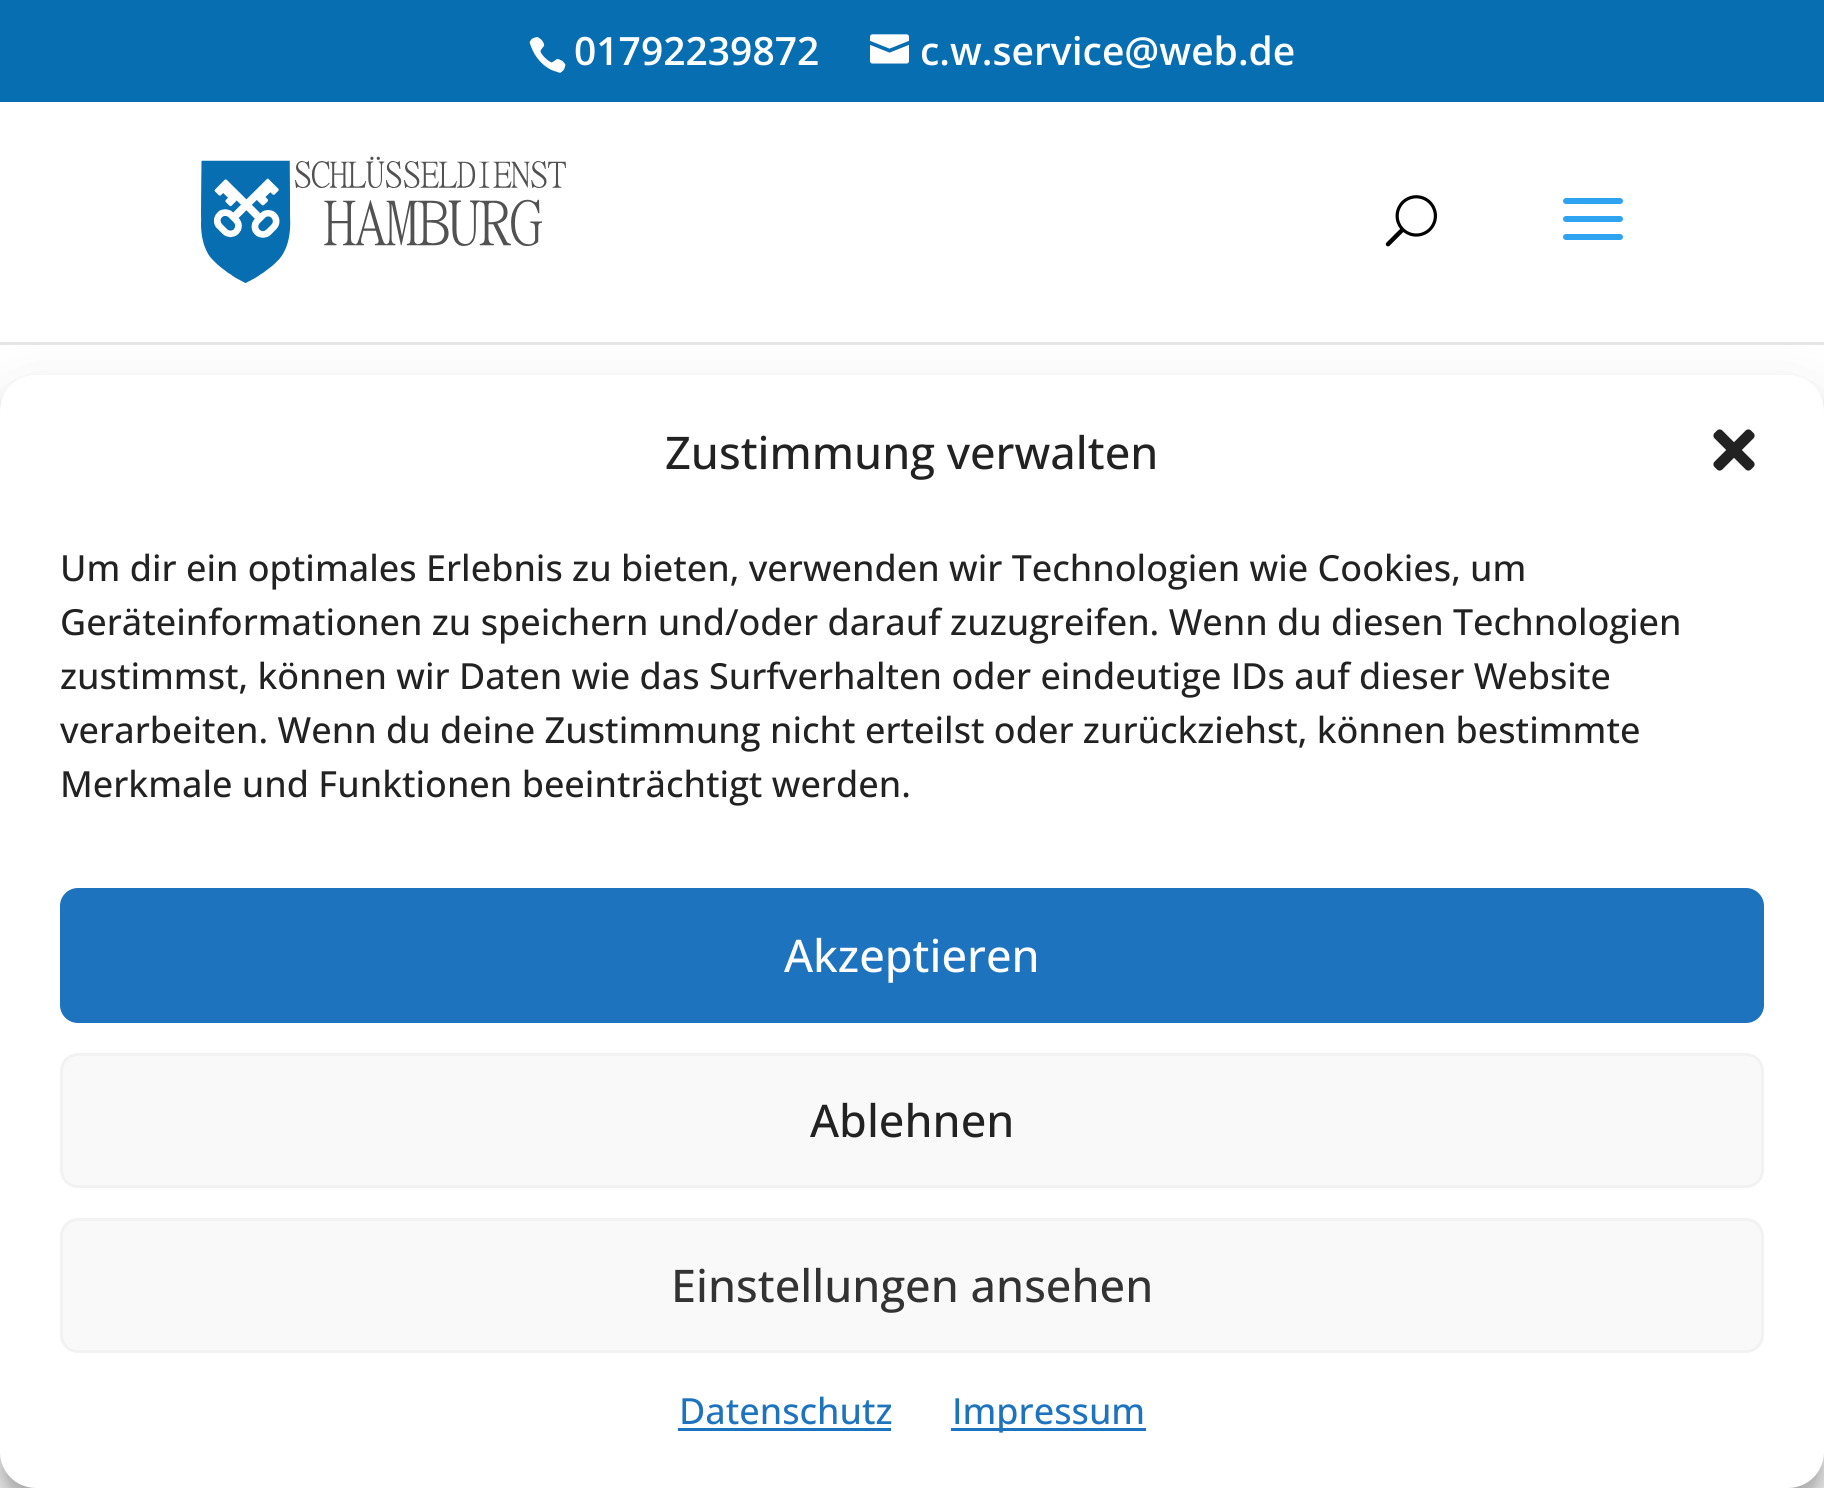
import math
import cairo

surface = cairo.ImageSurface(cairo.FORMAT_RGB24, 1824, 1488)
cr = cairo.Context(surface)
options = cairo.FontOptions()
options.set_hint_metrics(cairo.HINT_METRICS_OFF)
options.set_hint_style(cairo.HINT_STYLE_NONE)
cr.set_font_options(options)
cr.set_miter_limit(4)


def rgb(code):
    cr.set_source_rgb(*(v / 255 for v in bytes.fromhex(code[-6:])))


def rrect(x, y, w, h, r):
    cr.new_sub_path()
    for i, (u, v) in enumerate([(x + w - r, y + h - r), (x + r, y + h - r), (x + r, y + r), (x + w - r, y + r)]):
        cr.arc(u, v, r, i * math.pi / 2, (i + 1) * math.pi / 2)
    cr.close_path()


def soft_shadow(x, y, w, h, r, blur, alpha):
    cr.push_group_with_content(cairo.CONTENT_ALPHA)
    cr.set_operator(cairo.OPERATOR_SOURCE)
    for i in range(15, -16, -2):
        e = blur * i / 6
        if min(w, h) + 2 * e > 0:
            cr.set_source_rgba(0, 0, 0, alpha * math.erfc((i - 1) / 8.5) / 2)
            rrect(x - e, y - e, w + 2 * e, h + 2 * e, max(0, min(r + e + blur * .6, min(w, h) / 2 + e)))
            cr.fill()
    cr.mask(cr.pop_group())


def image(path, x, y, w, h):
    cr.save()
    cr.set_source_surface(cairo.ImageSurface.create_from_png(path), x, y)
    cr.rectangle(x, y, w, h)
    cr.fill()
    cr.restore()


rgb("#ffffff")
cr.paint()
rgb("#076eb2")
cr.rectangle(0, 0, 1824, 102)
cr.fill()
image("img/1.png", 529, 37, 37, 36)
image("img/2.png", 870, 34, 39, 30)
rgb("#000000")
soft_shadow(0, 405, 1824, 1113, 36, 30, 0.19)
rgb("#e5e5e5")
cr.rectangle(0, 342, 1824, 3)
cr.fill()
image("img/3.png", 201, 156, 365, 127)
image("img/4.png", 1385, 195, 52, 52)
image("img/5.png", 1563, 198, 60, 42)
rgb("#000000")
soft_shadow(0, 393, 1824, 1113, 36, 9, 0.23)
rgb("#ffffff")
rrect(0, 375, 1824, 1113, 36)
cr.fill()
image("img/6.png", 1713, 429, 42, 42)
rgb("#1e73be")
rrect(61.5, 889.5, 1701, 132, 16.5)
cr.fill_preserve()
cr.set_line_width(3)
cr.stroke()
rgb("#f9f9f9")
rrect(61.5, 1054.5, 1701, 132, 16.5)
cr.fill_preserve()
rgb("#f2f2f2")
cr.stroke()
rgb("#f9f9f9")
rrect(61.5, 1219.5, 1701, 132, 16.5)
cr.fill_preserve()
rgb("#f2f2f2")
cr.stroke()
rgb("#1e73be")
cr.rectangle(678, 1428, 213, 3)
cr.fill()
cr.rectangle(951, 1428, 195, 3)
cr.fill()
cr.select_font_face("Open Sans SemiBold")
cr.set_font_size(39)
rgb("#ffffff")
cr.move_to(574, 65)
cr.show_text("01792239872")
cr.move_to(920, 65)
cr.show_text("c.w.service@web.de")
cr.select_font_face("Open Sans Medium")
cr.set_font_size(45)
rgb("#222222")
cr.move_to(665, 469)
cr.show_text("Zustimmung verwalten")
cr.set_font_size(36)
for x, y, s in [
    (60, 581, "Um dir ein optimales Erlebnis zu bieten, verwenden wir Technologien wie Cookies, um"),
    (60, 635, "Geräteinformationen zu speichern und/oder darauf zuzugreifen. Wenn du diesen Technologien"),
    (60, 689, "zustimmst, können wir Daten wie das Surfverhalten oder eindeutige IDs auf dieser Website"),
    (60, 743, "verarbeiten. Wenn du deine Zustimmung nicht erteilst oder zurückziehst, können bestimmte"),
    (60, 797, "Merkmale und Funktionen beeinträchtigt werden."),
]:
    cr.move_to(x, y)
    cr.show_text(s)
cr.set_font_size(45)
rgb("#ffffff")
cr.move_to(784, 972)
cr.show_text("Akzeptieren")
rgb("#222222")
cr.move_to(810, 1137)
cr.show_text("Ablehnen")
rgb("#333333")
cr.move_to(671, 1302)
cr.show_text("Einstellungen ansehen")
cr.set_font_size(36)
rgb("#1e73be")
cr.move_to(679, 1424)
cr.show_text("Datenschutz")
cr.move_to(952, 1424)
cr.show_text("Impressum")
surface.write_to_png("page.png")
